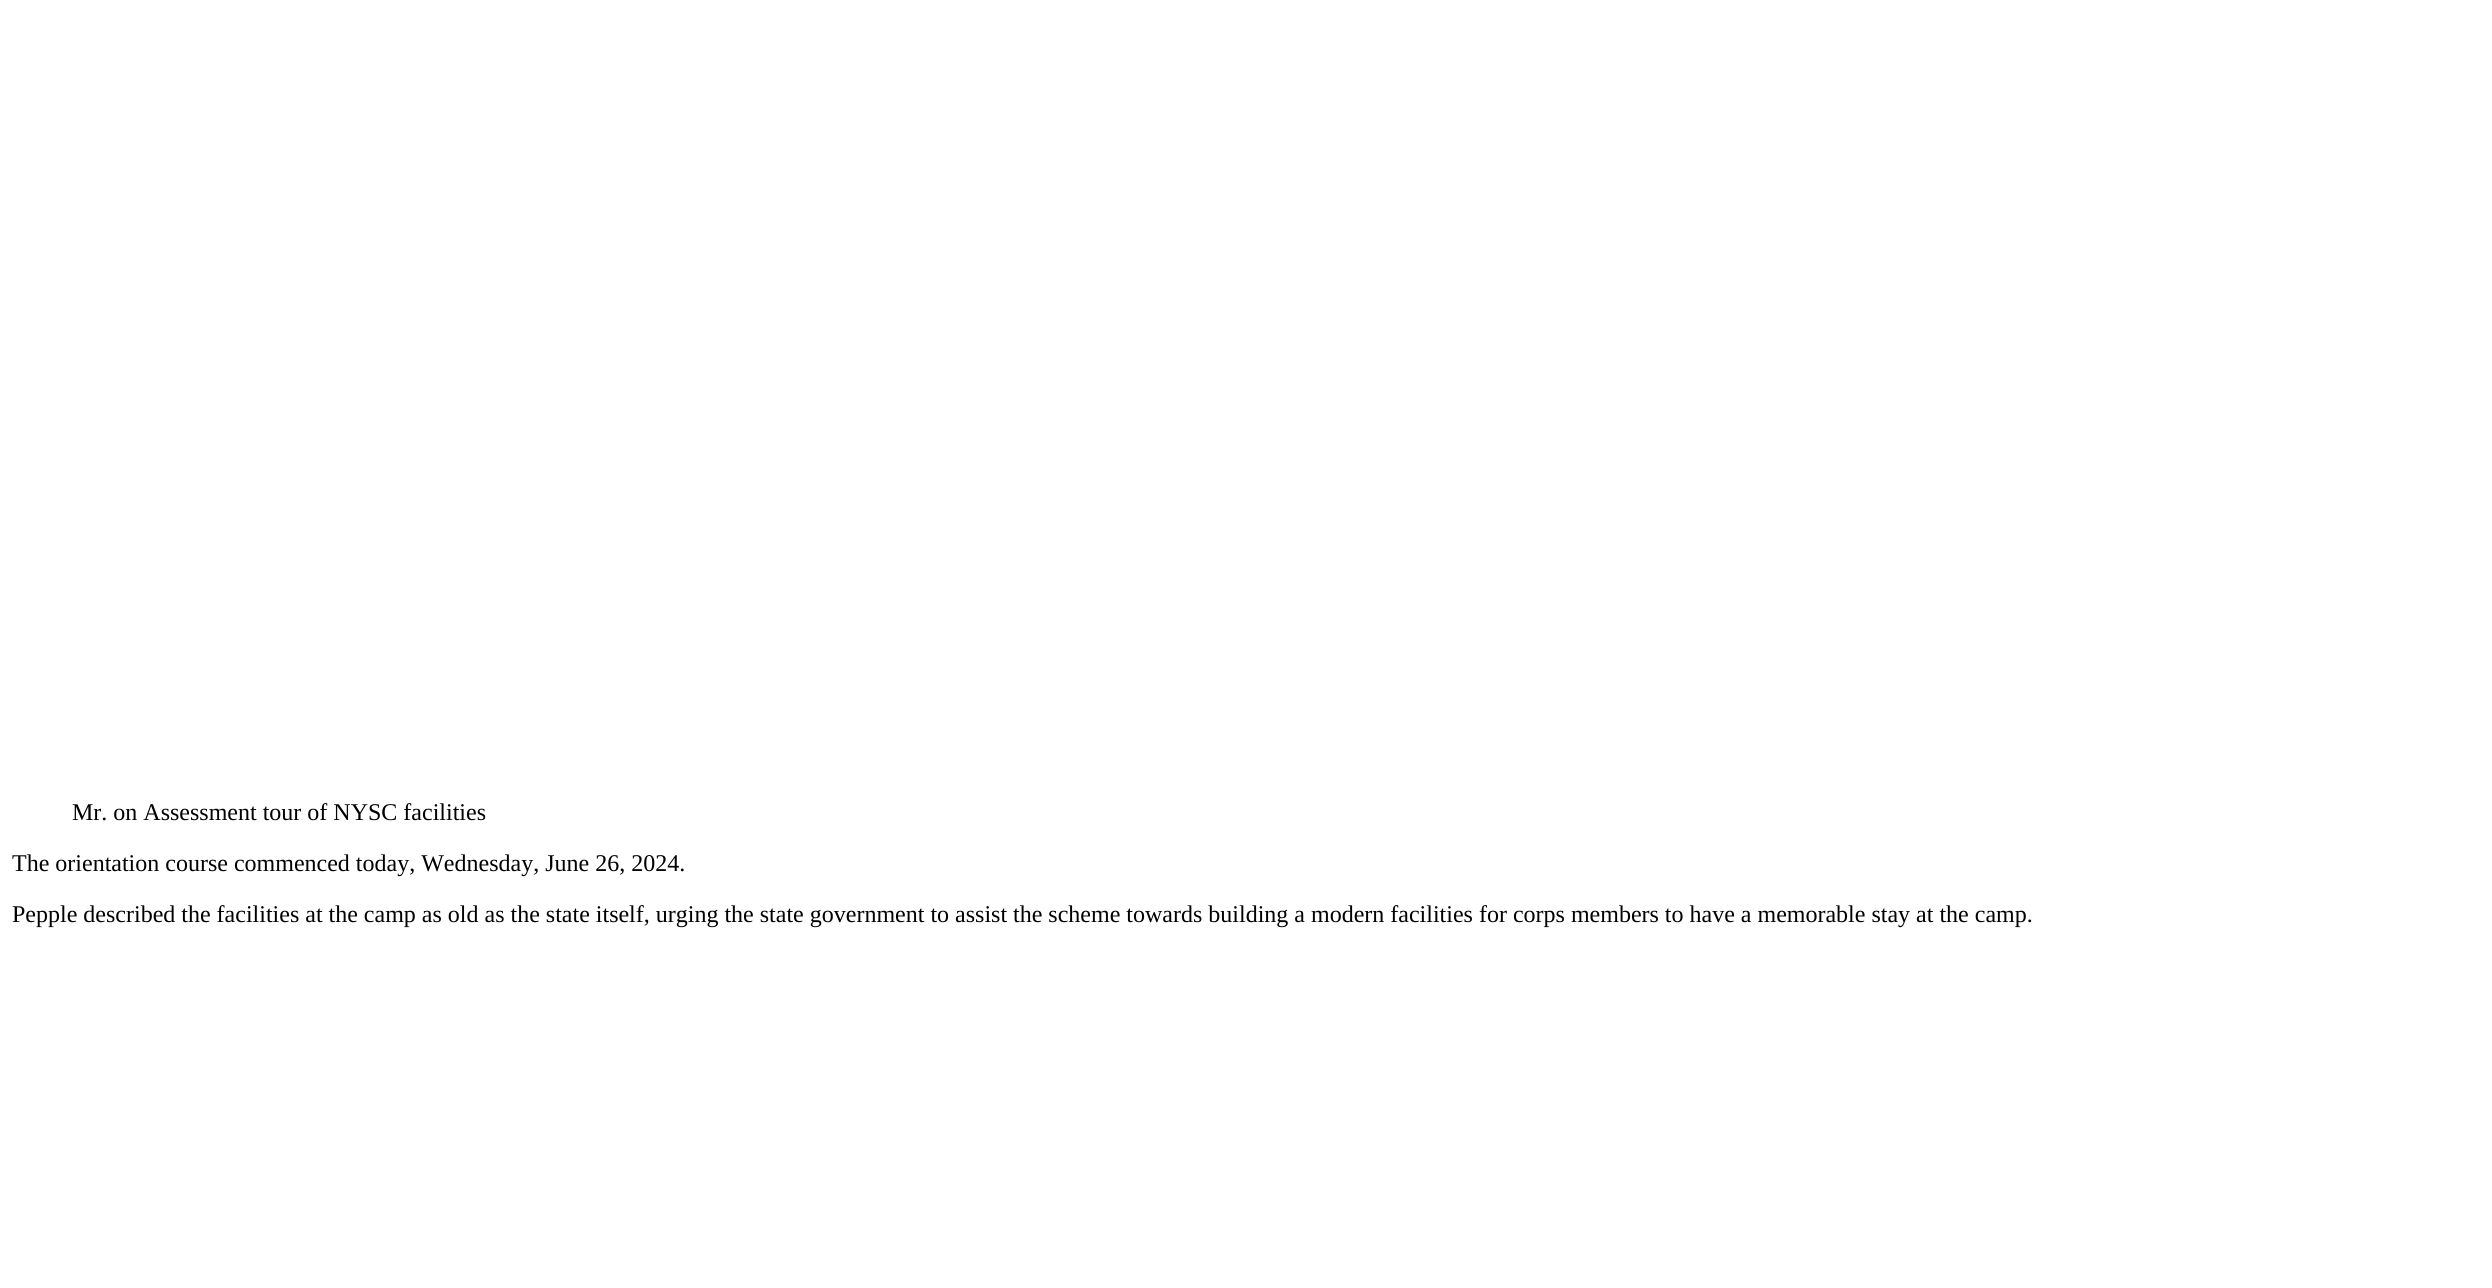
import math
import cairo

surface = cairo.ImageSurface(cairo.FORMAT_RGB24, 2492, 1288)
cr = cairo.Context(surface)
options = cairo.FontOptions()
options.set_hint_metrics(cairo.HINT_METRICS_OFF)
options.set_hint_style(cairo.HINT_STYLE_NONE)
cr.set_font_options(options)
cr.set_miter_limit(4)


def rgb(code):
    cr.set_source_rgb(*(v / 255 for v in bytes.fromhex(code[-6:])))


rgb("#ffffff")
cr.paint()
cr.select_font_face("Liberation Serif")
cr.set_font_size(24)
rgb("#000000")
for x, y, s in [
    (72, 820, "Mr. on Assessment tour of NYSC facilities"),
    (12, 871, "The orientation course commenced today, Wednesday, June 26, 2024."),
    (12, 922, "Pepple described the facilities at the camp as old as the state itself, urging the state government to assist the scheme towards building a modern facilities for corps members to have a memorable stay at the camp."),
]:
    cr.move_to(x, y)
    cr.show_text(s)
surface.write_to_png("page.png")
